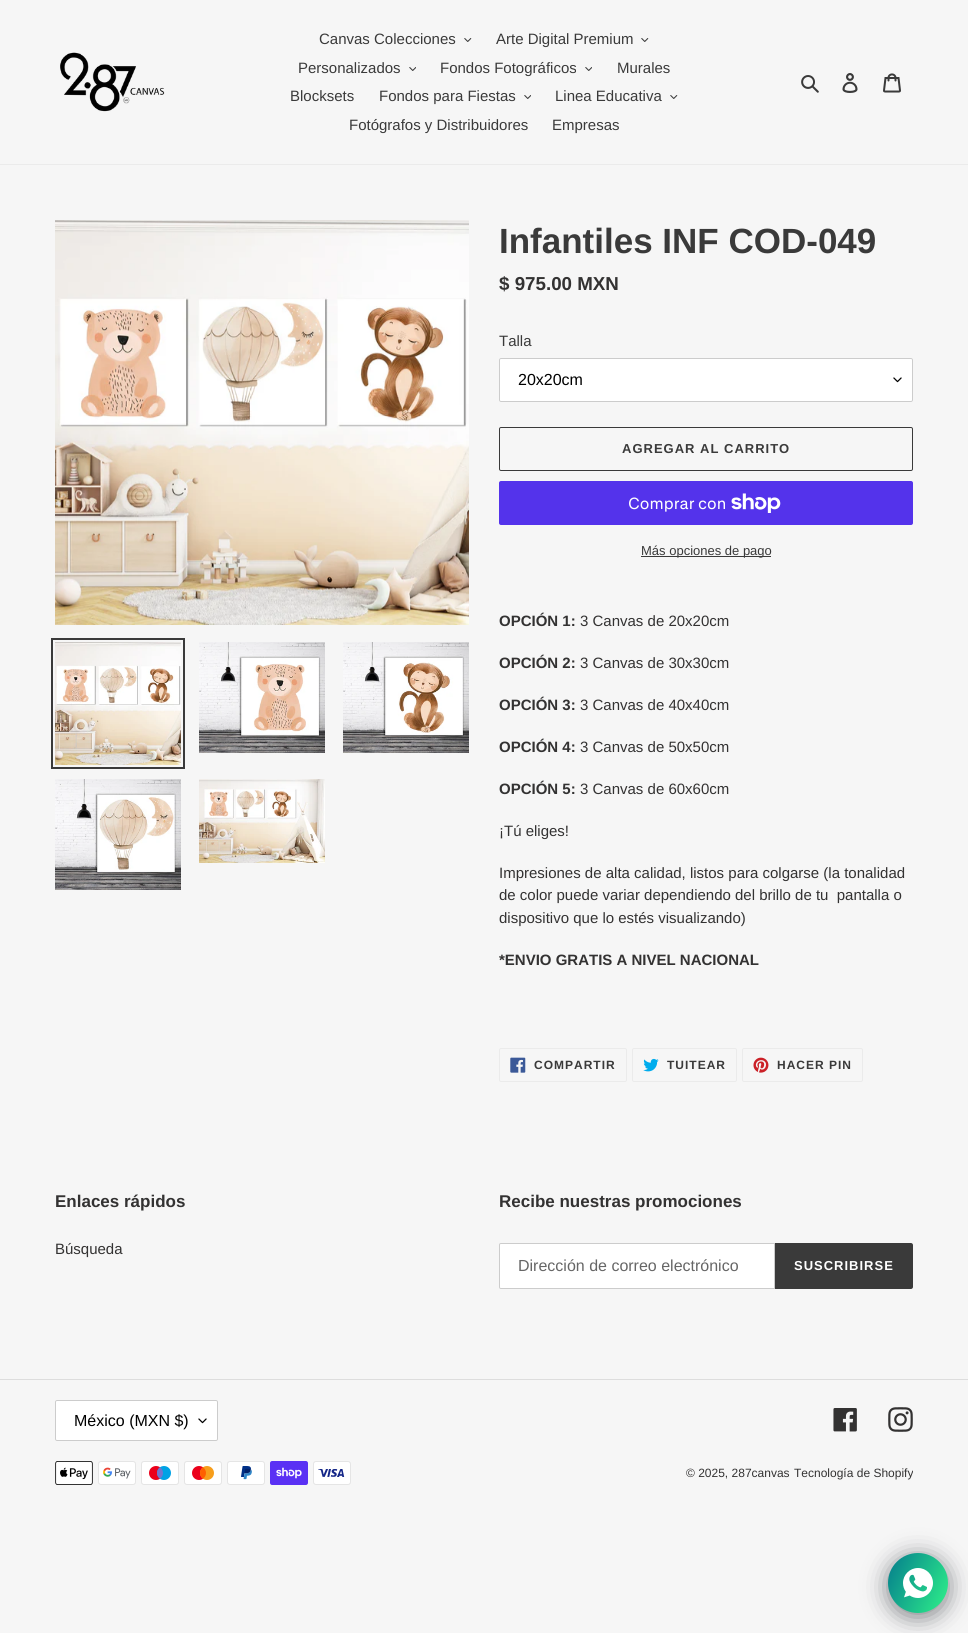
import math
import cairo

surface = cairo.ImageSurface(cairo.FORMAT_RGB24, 968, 1633)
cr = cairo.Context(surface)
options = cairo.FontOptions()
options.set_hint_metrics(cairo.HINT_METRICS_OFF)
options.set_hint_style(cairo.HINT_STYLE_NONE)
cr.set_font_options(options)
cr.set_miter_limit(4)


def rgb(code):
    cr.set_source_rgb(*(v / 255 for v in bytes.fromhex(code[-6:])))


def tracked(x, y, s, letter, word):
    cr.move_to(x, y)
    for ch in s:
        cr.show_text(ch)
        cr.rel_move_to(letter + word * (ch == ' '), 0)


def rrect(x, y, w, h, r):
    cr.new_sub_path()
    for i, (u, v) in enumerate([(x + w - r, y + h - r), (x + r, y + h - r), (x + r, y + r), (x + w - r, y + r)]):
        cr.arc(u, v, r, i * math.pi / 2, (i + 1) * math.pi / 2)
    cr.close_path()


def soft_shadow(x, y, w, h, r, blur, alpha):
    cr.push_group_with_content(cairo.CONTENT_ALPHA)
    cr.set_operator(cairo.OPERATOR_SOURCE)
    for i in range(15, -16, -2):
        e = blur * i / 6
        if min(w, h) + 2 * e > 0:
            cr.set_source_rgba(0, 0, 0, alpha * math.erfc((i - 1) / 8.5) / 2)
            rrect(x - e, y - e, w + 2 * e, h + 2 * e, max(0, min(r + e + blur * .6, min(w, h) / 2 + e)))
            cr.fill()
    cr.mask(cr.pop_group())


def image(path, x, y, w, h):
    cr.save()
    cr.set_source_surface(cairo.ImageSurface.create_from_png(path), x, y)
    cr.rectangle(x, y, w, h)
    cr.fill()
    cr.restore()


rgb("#f6f6f6")
cr.paint()
rgb("#ebebeb")
cr.rectangle(0, 164, 968, 1)
cr.fill()
image("img/1.png", 60, 52, 105, 60)
image("img/2.png", 464, 38, 8, 4)
image("img/2.png", 641, 38, 8, 4)
image("img/3.png", 409, 67, 7, 4)
image("img/3.png", 585, 67, 7, 4)
image("img/3.png", 524, 95, 7, 4)
image("img/2.png", 670, 95, 8, 4)
image("img/4.png", 801, 75, 18, 18)
image("img/5.png", 842, 73, 16, 20)
image("img/6.png", 883, 73, 18, 20)
image("img/7.png", 55, 220, 414, 405)
cr.rectangle(52, 639, 132, 129)
rgb("#3a3a3a")
cr.stroke()
image("img/8.png", 55, 642, 126, 123)
image("img/9.png", 199, 642, 126, 111)
image("img/10.png", 343, 642, 126, 111)
image("img/11.png", 55, 779, 126, 111)
image("img/12.png", 199, 779, 126, 84)
rgb("#ffffff")
rrect(499, 358, 414, 44, 2)
cr.fill()
image("img/13.png", 893, 377, 9, 6)
rrect(499.5, 358.5, 413, 43, 1.5)
rgb("#cccccc")
cr.set_line_width(1)
cr.stroke()
rrect(499.5, 427.5, 413, 43, 1.5)
rgb("#3a3a3a")
cr.stroke()
rgb("#5433eb")
rrect(499, 481, 414, 44, 2)
cr.fill()
image("img/14.png", 731, 493, 50, 20)
rgb("#3a3a3a")
cr.rectangle(641, 556, 130, 1)
cr.fill()
rrect(499.5, 1048.5, 127, 33, 1.5)
rgb("#ebebeb")
cr.stroke()
image("img/15.png", 510, 1057, 16, 16)
rrect(632.5, 1048.5, 104, 33, 1.5)
cr.stroke()
image("img/16.png", 643, 1058, 16, 14)
rrect(742.5, 1048.5, 120, 33, 1.5)
cr.stroke()
image("img/17.png", 753, 1057, 16, 16)
rgb("#ffffff")
cr.new_path()
cr.move_to(501, 1243.5)
cr.line_to(774.5, 1243.5)
cr.line_to(774.5, 1288.5)
cr.line_to(501, 1288.5)
cr.curve_to(500, 1288.5, 499.5, 1288, 499.5, 1287)
cr.line_to(499.5, 1245)
cr.curve_to(499.5, 1244, 500, 1243.5, 501, 1243.5)
cr.close_path()
cr.fill_preserve()
rgb("#cccccc")
cr.stroke()
rgb("#3a3a3a")
cr.new_path()
cr.move_to(775, 1243)
cr.line_to(911, 1243)
cr.curve_to(912, 1243, 913, 1244, 913, 1245)
cr.line_to(913, 1287)
cr.curve_to(913, 1288, 912, 1289, 911, 1289)
cr.line_to(775, 1289)
cr.close_path()
cr.fill()
rgb("#dddddd")
cr.rectangle(0, 1379, 968, 1)
cr.fill()
rgb("#ffffff")
rrect(55, 1400, 163, 41, 2)
cr.fill()
image("img/13.png", 198, 1418, 9, 6)
rrect(55.5, 1400.5, 162, 40, 1.5)
rgb("#cccccc")
cr.stroke()
image("img/18.png", 833, 1408, 24, 24)
image("img/19.png", 888, 1407, 25, 25)
image("img/20.png", 55, 1461, 38, 24)
image("img/21.png", 98, 1461, 38, 24)
image("img/22.png", 141, 1461, 38, 24)
image("img/23.png", 184, 1461, 38, 24)
image("img/24.png", 227, 1461, 38, 24)
image("img/25.png", 270, 1461, 38, 24)
image("img/26.png", 313, 1461, 38, 24)
rgb("#020610")
soft_shadow(888, 1557, 60, 60, 30, 12, 0.5)
gradient = cairo.LinearGradient(882, 1566, 954, 1600)
gradient.add_color_stop_rgba(0, 0.016, 0.486, 0.553, 1)
gradient.add_color_stop_rgba(1, 0.184, 0.949, 0.537, 1)
cr.set_source(gradient)
cr.arc(918, 1583, 30, 0, 2 * math.pi)
cr.fill()
image("img/27.png", 903, 1568, 30, 30)
cr.select_font_face("Liberation Sans")
cr.set_font_size(15)
rgb("#3a3a3a")
for x, y, s in [
    (319, 44, "Canvas Colecciones"),
    (496, 44, "Arte Digital Premium"),
    (298, 73, "Personalizados"),
    (440, 73, "Fondos Fotográficos"),
    (617, 73, "Murales"),
    (290, 101, "Blocksets"),
    (379, 101, "Fondos para Fiestas"),
    (555, 101, "Linea Educativa"),
    (349, 130, "Fotógrafos y Distribuidores"),
    (552, 130, "Empresas"),
]:
    cr.move_to(x, y)
    cr.show_text(s)
cr.select_font_face("Liberation Sans", cairo.FONT_SLANT_NORMAL, cairo.FONT_WEIGHT_BOLD)
cr.set_font_size(35)
cr.move_to(499, 253)
cr.show_text("Infantiles INF COD-049")
cr.set_font_size(18.75)
rgb("#333232")
cr.move_to(499, 290)
cr.show_text("$ 975.00 MXN")
cr.select_font_face("Liberation Sans")
cr.set_font_size(15)
rgb("#3a3a3a")
cr.move_to(499, 346)
cr.show_text("Talla")
cr.set_font_size(16)
rgb("#000000")
cr.move_to(518, 385)
cr.show_text("20x20cm")
cr.select_font_face("Liberation Sans", cairo.FONT_SLANT_NORMAL, cairo.FONT_WEIGHT_BOLD)
cr.set_font_size(13)
rgb("#3a3a3a")
tracked(622, 453, "AGREGAR AL CARRITO", 1, 0)
cr.select_font_face("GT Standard")
cr.set_font_size(16)
rgb("#ffffff")
cr.move_to(628, 509)
cr.show_text("Comprar con")
cr.select_font_face("Liberation Sans")
cr.set_font_size(13)
rgb("#3a3a3a")
cr.move_to(641, 555)
cr.show_text("Más opciones de pago")
cr.select_font_face("Liberation Sans", cairo.FONT_SLANT_NORMAL, cairo.FONT_WEIGHT_BOLD)
cr.set_font_size(15)
rgb("#333232")
cr.move_to(499, 626)
cr.show_text("OPCIÓN 1:")
cr.select_font_face("Liberation Sans")
cr.move_to(580, 626)
cr.show_text("3 Canvas de 20x20cm")
cr.select_font_face("Liberation Sans", cairo.FONT_SLANT_NORMAL, cairo.FONT_WEIGHT_BOLD)
cr.move_to(499, 668)
cr.show_text("OPCIÓN 2:")
cr.select_font_face("Liberation Sans")
cr.move_to(580, 668)
cr.show_text("3 Canvas de 30x30cm")
cr.select_font_face("Liberation Sans", cairo.FONT_SLANT_NORMAL, cairo.FONT_WEIGHT_BOLD)
cr.move_to(499, 710)
cr.show_text("OPCIÓN 3:")
cr.select_font_face("Liberation Sans")
cr.move_to(580, 710)
cr.show_text("3 Canvas de 40x40cm")
cr.select_font_face("Liberation Sans", cairo.FONT_SLANT_NORMAL, cairo.FONT_WEIGHT_BOLD)
cr.move_to(499, 752)
cr.show_text("OPCIÓN 4:")
cr.select_font_face("Liberation Sans")
cr.move_to(580, 752)
cr.show_text("3 Canvas de 50x50cm")
cr.select_font_face("Liberation Sans", cairo.FONT_SLANT_NORMAL, cairo.FONT_WEIGHT_BOLD)
cr.move_to(499, 794)
cr.show_text("OPCIÓN 5:")
cr.select_font_face("Liberation Sans")
for x, y, s in [
    (580, 794, "3 Canvas de 60x60cm"),
    (499, 836, "¡Tú eliges!"),
    (499, 878, "Impresiones de alta calidad, listos para colgarse (la tonalidad"),
    (499, 900, "de color puede variar dependiendo del brillo de tu  pantalla o"),
    (499, 923, "dispositivo que lo estés visualizando)"),
]:
    cr.move_to(x, y)
    cr.show_text(s)
cr.select_font_face("Liberation Sans", cairo.FONT_SLANT_NORMAL, cairo.FONT_WEIGHT_BOLD)
cr.move_to(499, 965)
cr.show_text("*ENVIO GRATIS A NIVEL NACIONAL")
cr.set_font_size(12)
rgb("#3a3a3a")
for x, y, s in [
    (534, 1069, "COMPARTIR"),
    (667, 1069, "TUITEAR"),
    (777, 1069, "HACER PIN"),
]:
    tracked(x, y, s, 1, 0)
cr.set_font_size(17)
rgb("#333232")
cr.move_to(55, 1207)
cr.show_text("Enlaces rápidos")
cr.select_font_face("Liberation Sans")
cr.set_font_size(15)
cr.move_to(55, 1254)
cr.show_text("Búsqueda")
cr.select_font_face("Liberation Sans", cairo.FONT_SLANT_NORMAL, cairo.FONT_WEIGHT_BOLD)
cr.set_font_size(17)
cr.move_to(499, 1207)
cr.show_text("Recibe nuestras promociones")
cr.select_font_face("Liberation Sans")
cr.set_font_size(16)
rgb("#666666")
cr.move_to(518, 1271)
cr.show_text("Dirección de correo electrónico")
cr.select_font_face("Liberation Sans", cairo.FONT_SLANT_NORMAL, cairo.FONT_WEIGHT_BOLD)
cr.set_font_size(13)
rgb("#ffffff")
tracked(794, 1270, "SUSCRIBIRSE", 1, 0)
cr.select_font_face("Liberation Sans")
cr.set_font_size(16)
rgb("#000000")
cr.move_to(74, 1426)
cr.show_text("México (MXN $)")
cr.set_font_size(12)
rgb("#333232")
cr.move_to(686, 1477)
cr.show_text("© 2025, 287canvas")
cr.move_to(794, 1477)
cr.show_text("Tecnología de Shopify")
surface.write_to_png("page.png")
